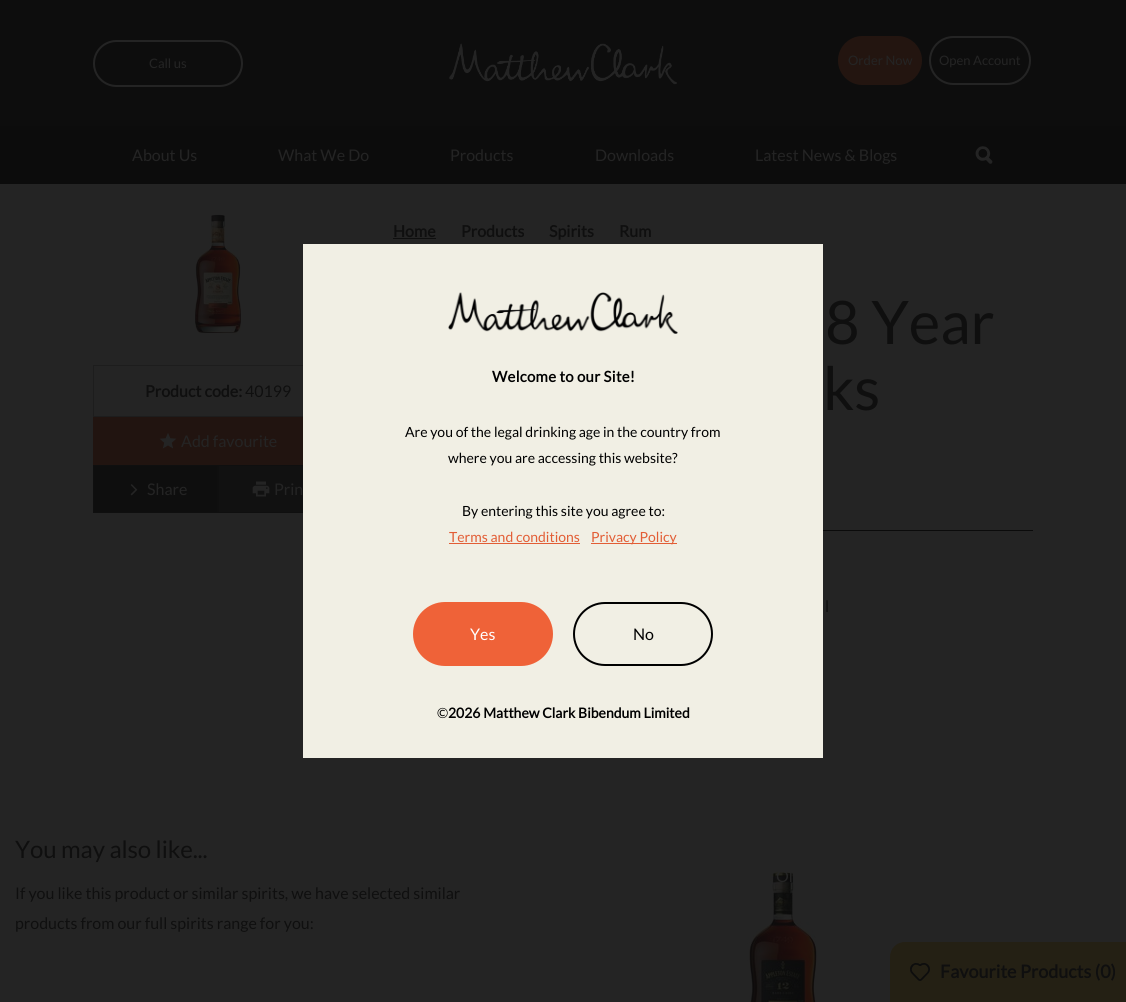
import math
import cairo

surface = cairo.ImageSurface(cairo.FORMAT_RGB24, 1126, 1002)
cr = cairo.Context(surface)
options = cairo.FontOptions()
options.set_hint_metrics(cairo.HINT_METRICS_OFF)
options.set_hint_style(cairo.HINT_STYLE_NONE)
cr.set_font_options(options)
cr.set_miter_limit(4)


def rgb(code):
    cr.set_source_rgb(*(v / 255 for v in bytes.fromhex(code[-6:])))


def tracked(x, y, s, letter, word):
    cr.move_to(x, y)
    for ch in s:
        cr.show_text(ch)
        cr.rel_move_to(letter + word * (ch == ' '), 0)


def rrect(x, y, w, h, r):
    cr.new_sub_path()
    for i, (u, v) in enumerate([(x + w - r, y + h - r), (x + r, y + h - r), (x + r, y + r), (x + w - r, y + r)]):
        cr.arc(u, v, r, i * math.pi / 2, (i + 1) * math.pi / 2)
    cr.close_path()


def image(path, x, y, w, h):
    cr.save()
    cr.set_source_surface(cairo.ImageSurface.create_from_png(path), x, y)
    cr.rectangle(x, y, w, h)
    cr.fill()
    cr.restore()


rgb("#242424")
cr.paint()
rgb("#0d0d0d")
cr.rectangle(0, 0, 1126, 126)
cr.fill()
rrect(94, 41, 148, 45, 22.5)
rgb("#242424")
cr.stroke()
image("img/1.png", 449, 43, 228, 42)
rgb("#231510")
rrect(839, 37, 82, 47, 23.5)
cr.fill_preserve()
cr.stroke()
rrect(930, 37, 100, 47, 23.5)
rgb("#242424")
cr.stroke()
rgb("#0c0c0c")
cr.rectangle(0, 126, 1126, 58)
cr.fill()
image("img/2.png", 975, 146, 18, 18)
rgb("#0b0b0b")
cr.rectangle(823, 530, 210, 1)
cr.fill()
rgb("#0f0f0f")
cr.rectangle(393, 238, 43, 1)
cr.fill()
image("img/3.png", 188, 214, 57, 127)
cr.rectangle(93.5, 365.5, 249, 51)
rgb("#1d1d1d")
cr.set_line_width(1)
cr.stroke()
rgb("#211410")
cr.rectangle(93, 417, 210, 48)
cr.fill()
image("img/4.png", 159, 433, 18, 16)
rgb("#0e0e0e")
cr.rectangle(93.5, 465.5, 124, 47)
cr.fill_preserve()
rgb("#0f0f0f")
cr.stroke()
image("img/5.png", 130, 484, 8, 12)
rgb("#111111")
cr.rectangle(219, 466, 84, 46)
cr.fill()
cr.rectangle(218.5, 465.5, 124, 47)
rgb("#0f0f0f")
cr.stroke()
image("img/6.png", 252, 481, 18, 16)
rgb("#f1efe4")
cr.rectangle(303, 244, 520, 514)
cr.fill()
image("img/7.png", 448, 292, 230, 42)
rgb("#e25d35")
cr.rectangle(449, 543, 131, 1)
cr.fill()
cr.rectangle(591, 543, 86, 1)
cr.fill()
rgb("#ef6238")
rrect(414, 603, 138, 62, 31)
cr.fill_preserve()
cr.set_line_width(2)
cr.stroke()
rrect(574, 603, 138, 62, 31)
rgb("#000000")
cr.stroke()
image("img/8.png", 738, 871, 79, 131)
rgb("#242014")
cr.new_path()
cr.move_to(905, 942)
cr.line_to(1126, 942)
cr.line_to(1126, 1002)
cr.line_to(890, 1002)
cr.line_to(890, 957)
cr.curve_to(890, 948.5, 896.5, 942, 905, 942)
cr.close_path()
cr.fill()
image("img/9.png", 910, 963, 20, 18)
cr.select_font_face("Lato")
cr.set_font_size(13)
rgb("#242424")
for x, y, s in [
    (149, 68, "Call us"),
    (848, 65, "Order Now"),
    (939, 65, "Open Account"),
]:
    cr.move_to(x, y)
    cr.show_text(s)
cr.set_font_size(16)
for x, y, s in [
    (132, 161, "About Us"),
    (278, 161, "What We Do"),
    (450, 161, "Products"),
    (595, 161, "Downloads"),
    (755, 161, "Latest News & Blogs"),
]:
    cr.move_to(x, y)
    cr.show_text(s)
cr.select_font_face("Lato", cairo.FONT_SLANT_NORMAL, cairo.FONT_WEIGHT_BOLD)
rgb("#0f0f0f")
for x, y, s in [
    (393, 237, "Home"),
    (461, 237, "Products"),
    (549, 237, "Spirits"),
    (619, 237, "Rum"),
]:
    cr.move_to(x, y)
    cr.show_text(s)
cr.select_font_face("Lato")
cr.set_font_size(60)
tracked(825, 344, "8 Year", -0.1, 0)
tracked(823, 410, "ks", -0.1, 0)
cr.select_font_face("Lato", cairo.FONT_SLANT_NORMAL, cairo.FONT_WEIGHT_BOLD)
cr.set_font_size(16)
cr.move_to(145, 397)
cr.show_text("Product code:")
cr.select_font_face("Lato")
cr.move_to(245, 397)
cr.show_text("40199")
rgb("#242424")
for x, y, s in [
    (181, 447, "Add favourite"),
    (147, 495, "Share"),
    (274, 495, "Prin"),
]:
    cr.move_to(x, y)
    cr.show_text(s)
rgb("#0f0f0f")
cr.move_to(825, 612)
cr.show_text("l")
cr.select_font_face("Lato", cairo.FONT_SLANT_NORMAL, cairo.FONT_WEIGHT_BOLD)
cr.set_font_size(15)
rgb("#000000")
tracked(492, 382, "Welcome to our Site!", 0.25, 0)
cr.select_font_face("Lato")
cr.set_font_size(14)
for x, y, s in [
    (405, 437, "Are you of the legal drinking age in the country from"),
    (448, 463, "where you are accessing this website?"),
    (462, 516, "By entering this site you agree to:"),
]:
    cr.move_to(x, y)
    cr.show_text(s)
rgb("#e25d35")
cr.move_to(449, 542)
cr.show_text("Terms and conditions")
cr.move_to(591, 542)
cr.show_text("Privacy Policy")
cr.set_font_size(16)
rgb("#ffffff")
cr.move_to(470, 640)
cr.show_text("Yes")
rgb("#000000")
cr.move_to(633, 640)
cr.show_text("No")
cr.set_font_size(14)
cr.move_to(437, 718)
cr.show_text("©")
cr.select_font_face("Lato", cairo.FONT_SLANT_NORMAL, cairo.FONT_WEIGHT_BOLD)
cr.move_to(448, 718)
cr.show_text("2026 Matthew Clark Bibendum Limited")
cr.select_font_face("Lato")
cr.set_font_size(24)
rgb("#0f0f0f")
tracked(15, 858, "You may also like...", -0.1, 0)
cr.set_font_size(16)
cr.move_to(15, 899)
cr.show_text("If you like this product or similar spirits, we have selected similar")
cr.move_to(15, 929)
cr.show_text("products from our full spirits range for you:")
rgb("#242424")
tracked(776, 882, "Ol", -0.1, 0)
cr.select_font_face("Lato", cairo.FONT_SLANT_NORMAL, cairo.FONT_WEIGHT_BOLD)
cr.set_font_size(18)
rgb("#0f0f0f")
cr.move_to(940, 978)
cr.show_text("Favourite Products (0)")
surface.write_to_png("page.png")
